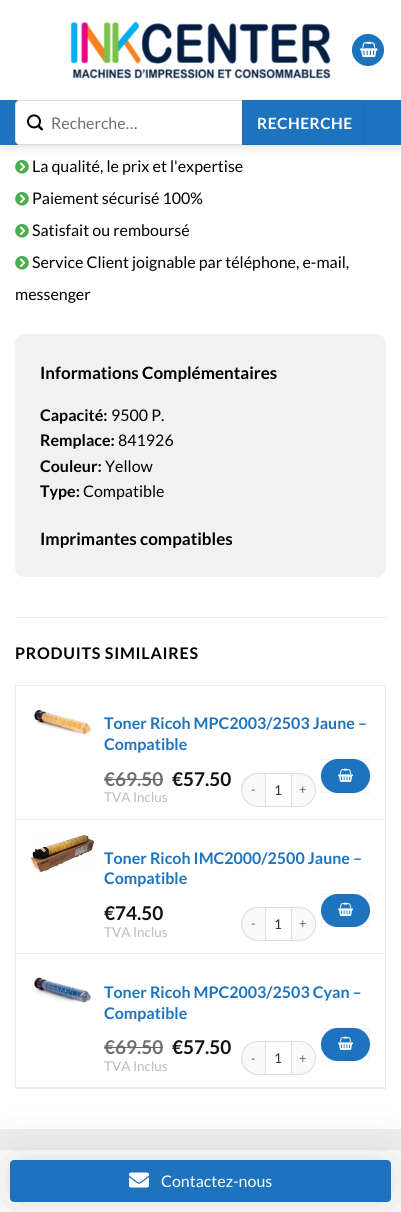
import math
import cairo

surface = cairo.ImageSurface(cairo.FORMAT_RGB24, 401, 1212)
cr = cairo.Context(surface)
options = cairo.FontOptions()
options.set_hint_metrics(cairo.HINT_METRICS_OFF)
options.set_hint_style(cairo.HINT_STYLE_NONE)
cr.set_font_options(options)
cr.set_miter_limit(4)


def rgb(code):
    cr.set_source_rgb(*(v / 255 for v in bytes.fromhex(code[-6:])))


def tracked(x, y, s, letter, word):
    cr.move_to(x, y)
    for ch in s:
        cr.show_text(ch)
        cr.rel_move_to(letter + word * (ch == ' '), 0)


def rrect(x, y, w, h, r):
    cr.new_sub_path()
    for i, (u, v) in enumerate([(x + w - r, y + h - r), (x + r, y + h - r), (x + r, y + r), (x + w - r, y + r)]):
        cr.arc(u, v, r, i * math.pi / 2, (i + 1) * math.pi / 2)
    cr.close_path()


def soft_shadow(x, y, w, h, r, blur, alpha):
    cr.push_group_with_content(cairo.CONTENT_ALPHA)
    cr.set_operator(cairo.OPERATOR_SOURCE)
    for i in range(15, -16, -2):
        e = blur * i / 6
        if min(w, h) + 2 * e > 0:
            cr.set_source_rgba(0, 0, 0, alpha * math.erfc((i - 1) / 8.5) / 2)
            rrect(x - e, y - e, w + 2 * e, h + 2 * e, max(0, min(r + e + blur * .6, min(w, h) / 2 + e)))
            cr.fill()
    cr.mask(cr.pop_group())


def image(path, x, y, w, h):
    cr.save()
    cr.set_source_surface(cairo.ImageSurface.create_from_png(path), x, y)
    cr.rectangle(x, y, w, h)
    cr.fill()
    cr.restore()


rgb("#ffffff")
cr.paint()
image("img/4.png", 15, 160, 14, 14)
rgb("#000000")
soft_shadow(1, 1, 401, 145, 0, 5, 0.15)
rgb("#ffffff")
cr.rectangle(0, 0, 401, 100)
cr.fill()
image("img/1.png", 70, 21, 261, 58)
rgb("#1e73be")
cr.arc(368, 50, 16, 0, 2 * math.pi)
cr.fill()
cr.rectangle(352.5, 34.5, 31, 31)
cr.set_source_rgba(0, 0, 0, 0.05)
cr.set_line_width(1)
cr.stroke()
image("img/2.png", 360, 41, 18, 17)
rgb("#1e73be")
cr.rectangle(0, 100, 401, 45)
cr.fill()
rgb("#ffffff")
cr.new_path()
cr.move_to(20, 100.5)
cr.line_to(243.5, 100.5)
cr.line_to(243.5, 144.5)
cr.line_to(20, 144.5)
cr.curve_to(17.5, 144.5, 15.5, 142.5, 15.5, 140)
cr.line_to(15.5, 105)
cr.curve_to(15.5, 102.5, 17.5, 100.5, 20, 100.5)
cr.close_path()
cr.fill_preserve()
rgb("#dddddd")
cr.stroke()
image("img/3.png", 27, 114, 16, 17)
rgb("#1e73be")
cr.new_path()
cr.move_to(242.5, 100.5)
cr.line_to(360, 100.5)
cr.curve_to(362.5, 100.5, 364.5, 102.5, 364.5, 105)
cr.line_to(364.5, 140)
cr.curve_to(364.5, 142.5, 362.5, 144.5, 360, 144.5)
cr.line_to(242.5, 144.5)
cr.close_path()
cr.fill_preserve()
rgb("#1d6db5")
cr.stroke()
image("img/4.png", 15, 192, 14, 14)
image("img/4.png", 15, 224, 14, 14)
image("img/4.png", 15, 256, 14, 14)
rgb("#f1f1f1")
rrect(15, 334, 371, 243, 10)
cr.fill()
for x, y, w, h, color in [
    (15, 617, 371, 1, "#ececec"),
    (15, 685, 371, 1, "#ececec"),
    (15, 1088, 371, 1, "#ececec"),
    (15, 685, 1, 404, "#ececec"),
    (385, 686, 1, 402, "#ececec"),
    (16, 819, 370, 1, "#ececec"),
]:
    rgb(color)
    cr.rectangle(x, y, w, h)
    cr.fill()
image("img/5.png", 34, 709, 58, 26)
rgb("#f9f9f9")
cr.new_path()
cr.move_to(258, 773)
cr.line_to(265, 773)
cr.line_to(265, 807)
cr.line_to(258, 807)
cr.curve_to(248.5, 807, 241, 799.5, 241, 790)
cr.curve_to(241, 780.5, 248.5, 773, 258, 773)
cr.close_path()
cr.fill()
rgb("#dddddd")
cr.set_fill_rule(cairo.FILL_RULE_EVEN_ODD)
cr.new_path()
cr.move_to(258, 773)
cr.line_to(265, 773)
cr.line_to(265, 807)
cr.curve_to(260.5, 807, 255.5, 807.5, 251.5, 805.5)
cr.curve_to(234.5, 798.5, 239.5, 773, 258, 773)
cr.close_path()
cr.move_to(258, 774)
cr.line_to(265, 774)
cr.line_to(265, 806)
cr.curve_to(260.5, 806, 256, 806.5, 252, 804.5)
cr.curve_to(236, 798, 241, 774, 258, 774)
cr.close_path()
cr.fill()
cr.rectangle(265.5, 773.5, 26, 33)
cr.stroke()
rgb("#f9f9f9")
cr.new_path()
cr.move_to(292, 773)
cr.line_to(299, 773)
cr.curve_to(308.5, 773, 316, 780.5, 316, 790)
cr.curve_to(316, 799.5, 308.5, 807, 299, 807)
cr.line_to(292, 807)
cr.close_path()
cr.fill()
rgb("#dddddd")
cr.new_path()
cr.move_to(292, 773)
cr.line_to(299, 773)
cr.curve_to(308.5, 773, 316, 780.5, 316, 790)
cr.curve_to(316, 799.5, 308.5, 807, 299, 807)
cr.line_to(292, 807)
cr.close_path()
cr.move_to(292, 774)
cr.line_to(299, 774)
cr.curve_to(308, 774, 315, 781, 315, 790)
cr.curve_to(315, 799, 308, 806, 299, 806)
cr.line_to(292, 806)
cr.close_path()
cr.fill()
rgb("#1e73be")
rrect(321, 759, 49, 34, 17)
cr.fill()
cr.rectangle(321.5, 759.5, 48, 33)
cr.set_source_rgba(0, 0, 0, 0.05)
cr.stroke()
image("img/6.png", 338, 768, 15, 14)
rgb("#ececec")
cr.rectangle(16, 953, 370, 1)
cr.fill()
image("img/7.png", 31, 835, 63, 37)
rgb("#f9f9f9")
cr.new_path()
cr.move_to(258, 907)
cr.line_to(265, 907)
cr.line_to(265, 941)
cr.line_to(258, 941)
cr.curve_to(248.5, 941, 241, 933.5, 241, 924)
cr.curve_to(241, 914.5, 248.5, 907, 258, 907)
cr.close_path()
cr.fill()
rgb("#dddddd")
cr.new_path()
cr.move_to(258, 907)
cr.line_to(265, 907)
cr.line_to(265, 941)
cr.curve_to(260.5, 941, 255.5, 941.5, 251.5, 939.5)
cr.curve_to(234.5, 932.5, 239.5, 907, 258, 907)
cr.close_path()
cr.move_to(258, 908)
cr.line_to(265, 908)
cr.line_to(265, 940)
cr.curve_to(260.5, 940, 256, 940.5, 252, 938.5)
cr.curve_to(236, 932, 241, 908, 258, 908)
cr.close_path()
cr.fill()
cr.rectangle(265.5, 907.5, 26, 33)
cr.stroke()
rgb("#f9f9f9")
cr.new_path()
cr.move_to(292, 907)
cr.line_to(299, 907)
cr.curve_to(308.5, 907, 316, 914.5, 316, 924)
cr.curve_to(316, 933.5, 308.5, 941, 299, 941)
cr.line_to(292, 941)
cr.close_path()
cr.fill()
rgb("#dddddd")
cr.new_path()
cr.move_to(292, 907)
cr.line_to(299, 907)
cr.curve_to(308.5, 907, 316, 914.5, 316, 924)
cr.curve_to(316, 933.5, 308.5, 941, 299, 941)
cr.line_to(292, 941)
cr.close_path()
cr.move_to(292, 908)
cr.line_to(299, 908)
cr.curve_to(308, 908, 315, 915, 315, 924)
cr.curve_to(315, 933, 308, 940, 299, 940)
cr.line_to(292, 940)
cr.close_path()
cr.fill()
rgb("#1e73be")
rrect(321, 894, 49, 33, 16.5)
cr.fill()
cr.rectangle(321.5, 894.5, 48, 32)
cr.set_source_rgba(0, 0, 0, 0.05)
cr.stroke()
image("img/6.png", 338, 902, 15, 14)
rgb("#ececec")
cr.rectangle(16, 1087, 370, 1)
cr.fill()
image("img/8.png", 34, 977, 58, 26)
rgb("#f9f9f9")
cr.new_path()
cr.move_to(258, 1041)
cr.line_to(265, 1041)
cr.line_to(265, 1075)
cr.line_to(258, 1075)
cr.curve_to(248.5, 1075, 241, 1067.5, 241, 1058)
cr.curve_to(241, 1048.5, 248.5, 1041, 258, 1041)
cr.close_path()
cr.fill()
rgb("#dddddd")
cr.new_path()
cr.move_to(258, 1041)
cr.line_to(265, 1041)
cr.line_to(265, 1075)
cr.curve_to(260.5, 1075, 255.5, 1075.5, 251.5, 1073.5)
cr.curve_to(234.5, 1066.5, 239.5, 1041, 258, 1041)
cr.close_path()
cr.move_to(258, 1042)
cr.line_to(265, 1042)
cr.line_to(265, 1074)
cr.curve_to(260.5, 1074, 256, 1074.5, 252, 1072.5)
cr.curve_to(236, 1066, 241, 1042, 258, 1042)
cr.close_path()
cr.fill()
cr.rectangle(265.5, 1041.5, 26, 33)
cr.stroke()
rgb("#f9f9f9")
cr.new_path()
cr.move_to(292, 1041)
cr.line_to(299, 1041)
cr.curve_to(308.5, 1041, 316, 1048.5, 316, 1058)
cr.curve_to(316, 1067.5, 308.5, 1075, 299, 1075)
cr.line_to(292, 1075)
cr.close_path()
cr.fill()
rgb("#dddddd")
cr.new_path()
cr.move_to(292, 1041)
cr.line_to(299, 1041)
cr.curve_to(308.5, 1041, 316, 1048.5, 316, 1058)
cr.curve_to(316, 1067.5, 308.5, 1075, 299, 1075)
cr.line_to(292, 1075)
cr.close_path()
cr.move_to(292, 1042)
cr.line_to(299, 1042)
cr.curve_to(308, 1042, 315, 1049, 315, 1058)
cr.curve_to(315, 1067, 308, 1074, 299, 1074)
cr.line_to(292, 1074)
cr.close_path()
cr.fill()
rgb("#1e73be")
rrect(321, 1028, 49, 33, 16.5)
cr.fill()
cr.rectangle(321.5, 1028.5, 48, 32)
cr.set_source_rgba(0, 0, 0, 0.05)
cr.stroke()
image("img/6.png", 338, 1036, 15, 14)
rgb("#f1f1f1")
cr.rectangle(0, 1129, 401, 21)
cr.fill()
rgb("#000000")
soft_shadow(10, 1160, 381, 42, 4, 30, 0.15)
rgb("#1e73be")
rrect(10, 1160, 381, 42, 4)
cr.fill()
image("img/9.png", 129, 1172, 20, 16)
cr.select_font_face("Lato")
cr.set_font_size(16)
rgb("#707070")
cr.move_to(51, 129)
cr.show_text("Recherche…")
cr.select_font_face("Lato", cairo.FONT_SLANT_NORMAL, cairo.FONT_WEIGHT_BOLD)
cr.set_font_size(15.5)
rgb("#ffffff")
tracked(257, 129, "RECHERCHE", 0.5, 0)
cr.select_font_face("Lato")
cr.set_font_size(16)
rgb("#000000")
for x, y, s in [
    (32, 172, "La qualité, le prix et l'expertise"),
    (32, 204, "Paiement sécurisé 100%"),
    (32, 236, "Satisfait ou remboursé"),
    (32, 268, "Service Client joignable par téléphone, e-mail,"),
    (15, 300, "messenger"),
]:
    cr.move_to(x, y)
    cr.show_text(s)
cr.select_font_face("Lato", cairo.FONT_SLANT_NORMAL, cairo.FONT_WEIGHT_BOLD)
cr.set_font_size(17)
cr.move_to(40, 379)
cr.show_text("Informations Complémentaires")
cr.set_font_size(16)
cr.move_to(40, 421)
cr.show_text("Capacité:")
cr.select_font_face("Lato")
cr.move_to(111, 421)
cr.show_text("9500 P.")
cr.select_font_face("Lato", cairo.FONT_SLANT_NORMAL, cairo.FONT_WEIGHT_BOLD)
cr.move_to(40, 446)
cr.show_text("Remplace:")
cr.select_font_face("Lato")
cr.move_to(118, 446)
cr.show_text("841926")
cr.select_font_face("Lato", cairo.FONT_SLANT_NORMAL, cairo.FONT_WEIGHT_BOLD)
cr.move_to(40, 472)
cr.show_text("Couleur:")
cr.select_font_face("Lato")
cr.move_to(105, 472)
cr.show_text("Yellow")
cr.select_font_face("Lato", cairo.FONT_SLANT_NORMAL, cairo.FONT_WEIGHT_BOLD)
cr.move_to(40, 497)
cr.show_text("Type:")
cr.select_font_face("Lato")
cr.move_to(83, 497)
cr.show_text("Compatible")
cr.select_font_face("Lato", cairo.FONT_SLANT_NORMAL, cairo.FONT_WEIGHT_BOLD)
cr.set_font_size(17)
cr.move_to(40, 545)
cr.show_text("Imprimantes compatibles")
cr.set_font_size(16)
tracked(15, 659, "PRODUITS SIMILAIRES", 0.75, 0)
rgb("#1e73be")
cr.move_to(104, 729)
cr.show_text("Toner Ricoh MPC2003/2503 Jaune –")
cr.move_to(104, 750)
cr.show_text("Compatible")
cr.set_font_size(19)
rgb("#707070")
cr.move_to(104, 786)
cr.show_text("€69.50")
rgb("#666666")
cr.rectangle(104, 779, 59, 1)
cr.fill()
rgb("#111111")
cr.move_to(172, 786)
cr.show_text("€57.50")
cr.select_font_face("Lato")
cr.set_font_size(13.5)
rgb("#bbbbbb")
cr.move_to(104, 802)
cr.show_text("TVA Inclus")
cr.set_font_size(13)
rgb("#666666")
cr.move_to(251, 794)
cr.show_text("-")
cr.set_font_size(13.5)
rgb("#333333")
cr.move_to(274, 795)
cr.show_text("1")
cr.set_font_size(13)
rgb("#666666")
cr.move_to(299, 794)
cr.show_text("+")
cr.select_font_face("Lato", cairo.FONT_SLANT_NORMAL, cairo.FONT_WEIGHT_BOLD)
cr.set_font_size(16)
rgb("#1e73be")
cr.move_to(104, 864)
cr.show_text("Toner Ricoh IMC2000/2500 Jaune –")
cr.move_to(104, 884)
cr.show_text("Compatible")
cr.set_font_size(19)
rgb("#111111")
cr.move_to(104, 920)
cr.show_text("€74.50")
cr.select_font_face("Lato")
cr.set_font_size(13.5)
rgb("#bbbbbb")
cr.move_to(104, 937)
cr.show_text("TVA Inclus")
cr.set_font_size(13)
rgb("#666666")
cr.move_to(251, 928)
cr.show_text("-")
cr.set_font_size(13.5)
rgb("#333333")
cr.move_to(274, 929)
cr.show_text("1")
cr.set_font_size(13)
rgb("#666666")
cr.move_to(299, 928)
cr.show_text("+")
cr.select_font_face("Lato", cairo.FONT_SLANT_NORMAL, cairo.FONT_WEIGHT_BOLD)
cr.set_font_size(16)
rgb("#1e73be")
cr.move_to(104, 998)
cr.show_text("Toner Ricoh MPC2003/2503 Cyan –")
cr.move_to(104, 1019)
cr.show_text("Compatible")
cr.set_font_size(19)
rgb("#707070")
cr.move_to(104, 1054)
cr.show_text("€69.50")
rgb("#666666")
cr.rectangle(104, 1047, 59, 1)
cr.fill()
rgb("#111111")
cr.move_to(172, 1054)
cr.show_text("€57.50")
cr.select_font_face("Lato")
cr.set_font_size(13.5)
rgb("#bbbbbb")
cr.move_to(104, 1071)
cr.show_text("TVA Inclus")
cr.set_font_size(13)
rgb("#666666")
cr.move_to(251, 1063)
cr.show_text("-")
cr.set_font_size(13.5)
rgb("#333333")
cr.move_to(274, 1063)
cr.show_text("1")
cr.set_font_size(13)
rgb("#666666")
cr.move_to(299, 1063)
cr.show_text("+")
cr.set_font_size(16)
rgb("#ffffff")
cr.move_to(161, 1187)
cr.show_text("Contactez-nous")
surface.write_to_png("page.png")
